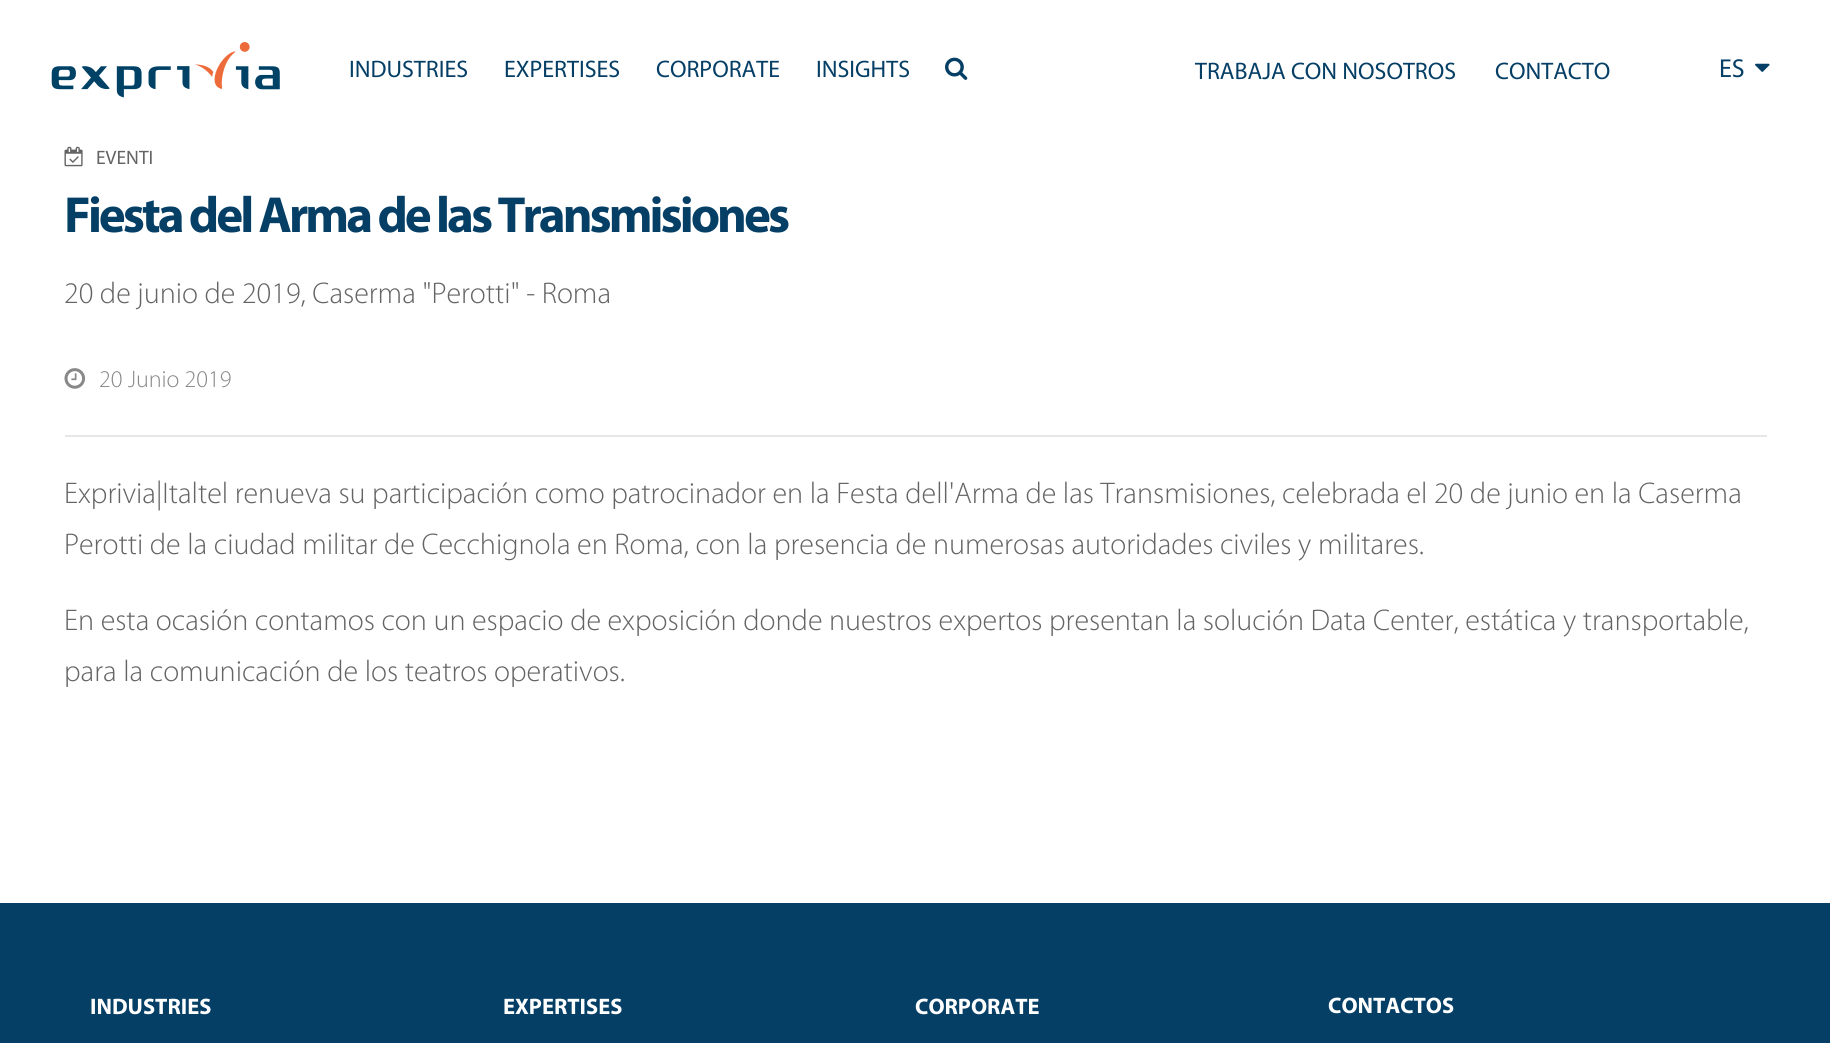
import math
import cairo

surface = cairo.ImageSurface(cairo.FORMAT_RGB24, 1830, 1043)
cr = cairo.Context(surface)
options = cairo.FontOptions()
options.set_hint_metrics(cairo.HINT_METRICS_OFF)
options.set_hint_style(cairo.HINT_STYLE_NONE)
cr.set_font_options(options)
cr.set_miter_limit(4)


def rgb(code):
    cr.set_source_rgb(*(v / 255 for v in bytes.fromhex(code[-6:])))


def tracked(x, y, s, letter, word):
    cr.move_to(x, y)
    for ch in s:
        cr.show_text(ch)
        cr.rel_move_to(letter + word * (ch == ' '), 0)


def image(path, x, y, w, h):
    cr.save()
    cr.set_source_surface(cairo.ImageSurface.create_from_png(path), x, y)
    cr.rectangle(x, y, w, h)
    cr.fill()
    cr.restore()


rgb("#ffffff")
cr.paint()
image("img/1.png", 51, 42, 229, 56)
image("img/2.png", 945, 57, 23, 23)
image("img/3.png", 1755, 63, 15, 9)
image("img/4.png", 64, 146, 19, 21)
rgb("#e6e6e6")
cr.rectangle(65, 435, 1702, 2)
cr.fill()
image("img/5.png", 64, 368, 22, 21)
rgb("#063f66")
cr.rectangle(0, 903, 1830, 140)
cr.fill()
cr.select_font_face("Myriad")
cr.set_font_size(24)
for x, y, s in [
    (349, 77, "INDUSTRIES"),
    (504, 77, "EXPERTISES"),
    (656, 77, "CORPORATE"),
    (816, 77, "INSIGHTS"),
    (1195, 79, "TRABAJA CON NOSOTROS"),
    (1495, 79, "CONTACTO"),
]:
    cr.move_to(x, y)
    cr.show_text(s)
cr.set_font_size(26)
cr.move_to(1719, 77)
cr.show_text("ES")
cr.set_font_size(19.5)
rgb("#646464")
cr.move_to(96, 164)
cr.show_text("EVENTI")
cr.select_font_face("Myriad", cairo.FONT_SLANT_NORMAL, cairo.FONT_WEIGHT_BOLD)
cr.set_font_size(51)
rgb("#063f66")
tracked(64, 232, "Fiesta del Arma de las Transmisiones", -3, 0)
cr.select_font_face("Myriad Light")
cr.set_font_size(30)
rgb("#646464")
cr.move_to(64, 303)
cr.show_text("20 de junio de 2019, Caserma \"Perotti\" - Roma")
cr.set_font_size(24)
rgb("#888888")
cr.move_to(99, 387)
cr.show_text("20 Junio 2019")
cr.set_font_size(30)
rgb("#646464")
for x, y, s in [
    (64, 503, "Exprivia|Italtel renueva su participación como patrocinador en la Festa dell'Arma de las Transmisiones, celebrada el 20 de junio en la Caserma"),
    (64, 554, "Perotti de la ciudad militar de Cecchignola en Roma, con la presencia de numerosas autoridades civiles y militares."),
    (64, 630, "En esta ocasión contamos con un espacio de exposición donde nuestros expertos presentan la solución Data Center, estática y transportable,"),
    (64, 681, "para la comunicación de los teatros operativos."),
]:
    cr.move_to(x, y)
    cr.show_text(s)
cr.select_font_face("Myriad", cairo.FONT_SLANT_NORMAL, cairo.FONT_WEIGHT_BOLD)
cr.set_font_size(22.5)
rgb("#ffffff")
for x, y, s in [
    (90, 1014, "INDUSTRIES"),
    (503, 1014, "EXPERTISES"),
    (915, 1014, "CORPORATE"),
    (1328, 1013, "CONTACTOS"),
]:
    cr.move_to(x, y)
    cr.show_text(s)
surface.write_to_png("page.png")
